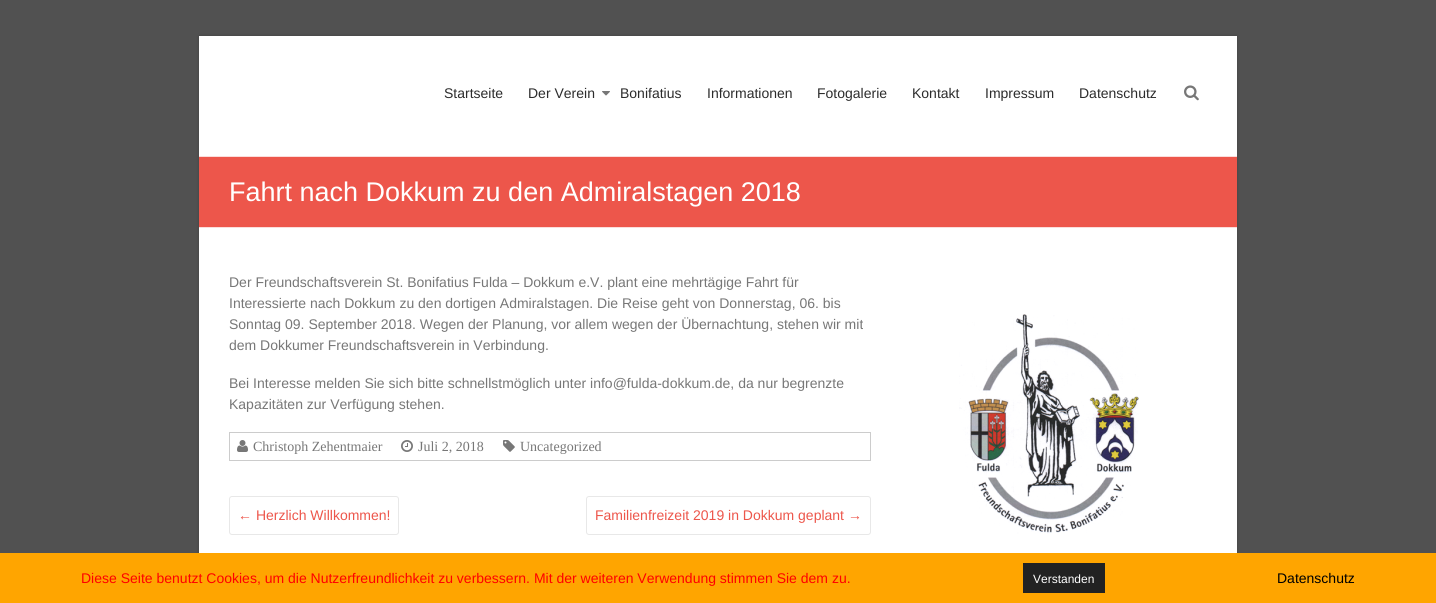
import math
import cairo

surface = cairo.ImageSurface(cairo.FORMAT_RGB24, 1436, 603)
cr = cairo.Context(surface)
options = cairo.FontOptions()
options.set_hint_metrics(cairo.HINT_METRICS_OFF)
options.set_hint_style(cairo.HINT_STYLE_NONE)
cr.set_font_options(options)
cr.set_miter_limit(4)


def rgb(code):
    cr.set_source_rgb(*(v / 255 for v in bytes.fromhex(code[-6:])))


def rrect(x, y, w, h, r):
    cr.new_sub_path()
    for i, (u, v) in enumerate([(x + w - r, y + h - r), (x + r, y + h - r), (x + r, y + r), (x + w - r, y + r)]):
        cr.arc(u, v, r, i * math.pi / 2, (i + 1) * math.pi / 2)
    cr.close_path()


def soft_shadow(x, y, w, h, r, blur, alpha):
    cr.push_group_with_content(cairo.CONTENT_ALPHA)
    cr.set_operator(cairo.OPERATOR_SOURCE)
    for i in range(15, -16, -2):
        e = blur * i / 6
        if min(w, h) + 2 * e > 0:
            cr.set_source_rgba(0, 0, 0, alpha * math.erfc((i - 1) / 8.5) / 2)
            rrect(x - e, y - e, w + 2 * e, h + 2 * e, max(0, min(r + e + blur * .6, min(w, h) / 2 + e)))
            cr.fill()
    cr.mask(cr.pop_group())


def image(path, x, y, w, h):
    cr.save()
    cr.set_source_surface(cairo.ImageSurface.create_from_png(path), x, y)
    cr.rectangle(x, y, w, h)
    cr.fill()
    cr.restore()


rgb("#515151")
cr.paint()
rgb("#000000")
soft_shadow(199, 36, 1038, 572, 0, 1.5, 0.2)
rgb("#ffffff")
cr.rectangle(199, 36, 1038, 517)
cr.fill()
image("img/1.png", 602, 91, 8, 5)
image("img/2.png", 1184, 85, 15, 16)
for x, y, w, h, color in [
    (199, 157, 1038, 70, "#ed564b"),
    (199, 156, 1038, 1, "#fbdddb"),
    (199, 227, 1038, 1, "#fbdddb"),
]:
    rgb(color)
    cr.rectangle(x, y, w, h)
    cr.fill()
cr.rectangle(229.5, 432.5, 641, 28)
rgb("#cccccc")
cr.set_line_width(1)
cr.stroke()
image("img/3.png", 237, 440, 11, 12)
image("img/4.png", 401, 440, 12, 12)
image("img/5.png", 503, 440, 12, 12)
rrect(229.5, 496.5, 169, 38, 2.5)
rgb("#e8e8e8")
cr.stroke()
rrect(586.5, 496.5, 284, 38, 2.5)
cr.stroke()
image("img/6.png", 959, 314, 180, 220)
rgb("#ffa500")
cr.rectangle(0, 553, 1436, 50)
cr.fill()
rgb("#222222")
cr.rectangle(1023, 563, 82, 30)
cr.fill()
cr.select_font_face("Liberation Sans")
cr.set_font_size(14)
rgb("#2c2c2c")
for x, y, s in [
    (444, 98, "Startseite"),
    (528, 98, "Der Verein"),
    (620, 98, "Bonifatius"),
    (707, 98, "Informationen"),
    (817, 98, "Fotogalerie"),
    (912, 98, "Kontakt"),
    (985, 98, "Impressum"),
    (1079, 98, "Datenschutz"),
]:
    cr.move_to(x, y)
    cr.show_text(s)
cr.set_font_size(27)
rgb("#ffffff")
cr.move_to(229, 201)
cr.show_text("Fahrt nach Dokkum zu den Admiralstagen 2018")
cr.set_font_size(14)
rgb("#777777")
for x, y, s in [
    (229, 287, "Der Freundschaftsverein St. Bonifatius Fulda – Dokkum e.V. plant eine mehrtägige Fahrt für"),
    (229, 308, "Interessierte nach Dokkum zu den dortigen Admiralstagen. Die Reise geht von Donnerstag, 06. bis"),
    (229, 329, "Sonntag 09. September 2018. Wegen der Planung, vor allem wegen der Übernachtung, stehen wir mit"),
    (229, 350, "dem Dokkumer Freundschaftsverein in Verbindung."),
    (229, 388, "Bei Interesse melden Sie sich bitte schnellstmöglich unter info@fulda-dokkum.de, da nur begrenzte"),
    (229, 409, "Kapazitäten zur Verfügung stehen."),
]:
    cr.move_to(x, y)
    cr.show_text(s)
cr.select_font_face("Liberation Serif")
for x, y, s in [
    (253, 451, "Christoph Zehentmaier"),
    (418, 451, "Juli 2, 2018"),
    (520, 451, "Uncategorized"),
]:
    cr.move_to(x, y)
    cr.show_text(s)
cr.select_font_face("Liberation Sans")
rgb("#ed564b")
cr.move_to(238, 520)
cr.show_text("← Herzlich Willkommen!")
cr.move_to(595, 520)
cr.show_text("Familienfreizeit 2019 in Dokkum geplant →")
rgb("#ff0000")
cr.move_to(81, 583)
cr.show_text("Diese Seite benutzt Cookies, um die Nutzerfreundlichkeit zu verbessern. Mit der weiteren Verwendung stimmen Sie dem zu.")
cr.set_font_size(12)
rgb("#ffffff")
cr.move_to(1033, 583)
cr.show_text("Verstanden")
cr.set_font_size(14)
rgb("#000000")
cr.move_to(1277, 583)
cr.show_text("Datenschutz")
surface.write_to_png("page.png")
